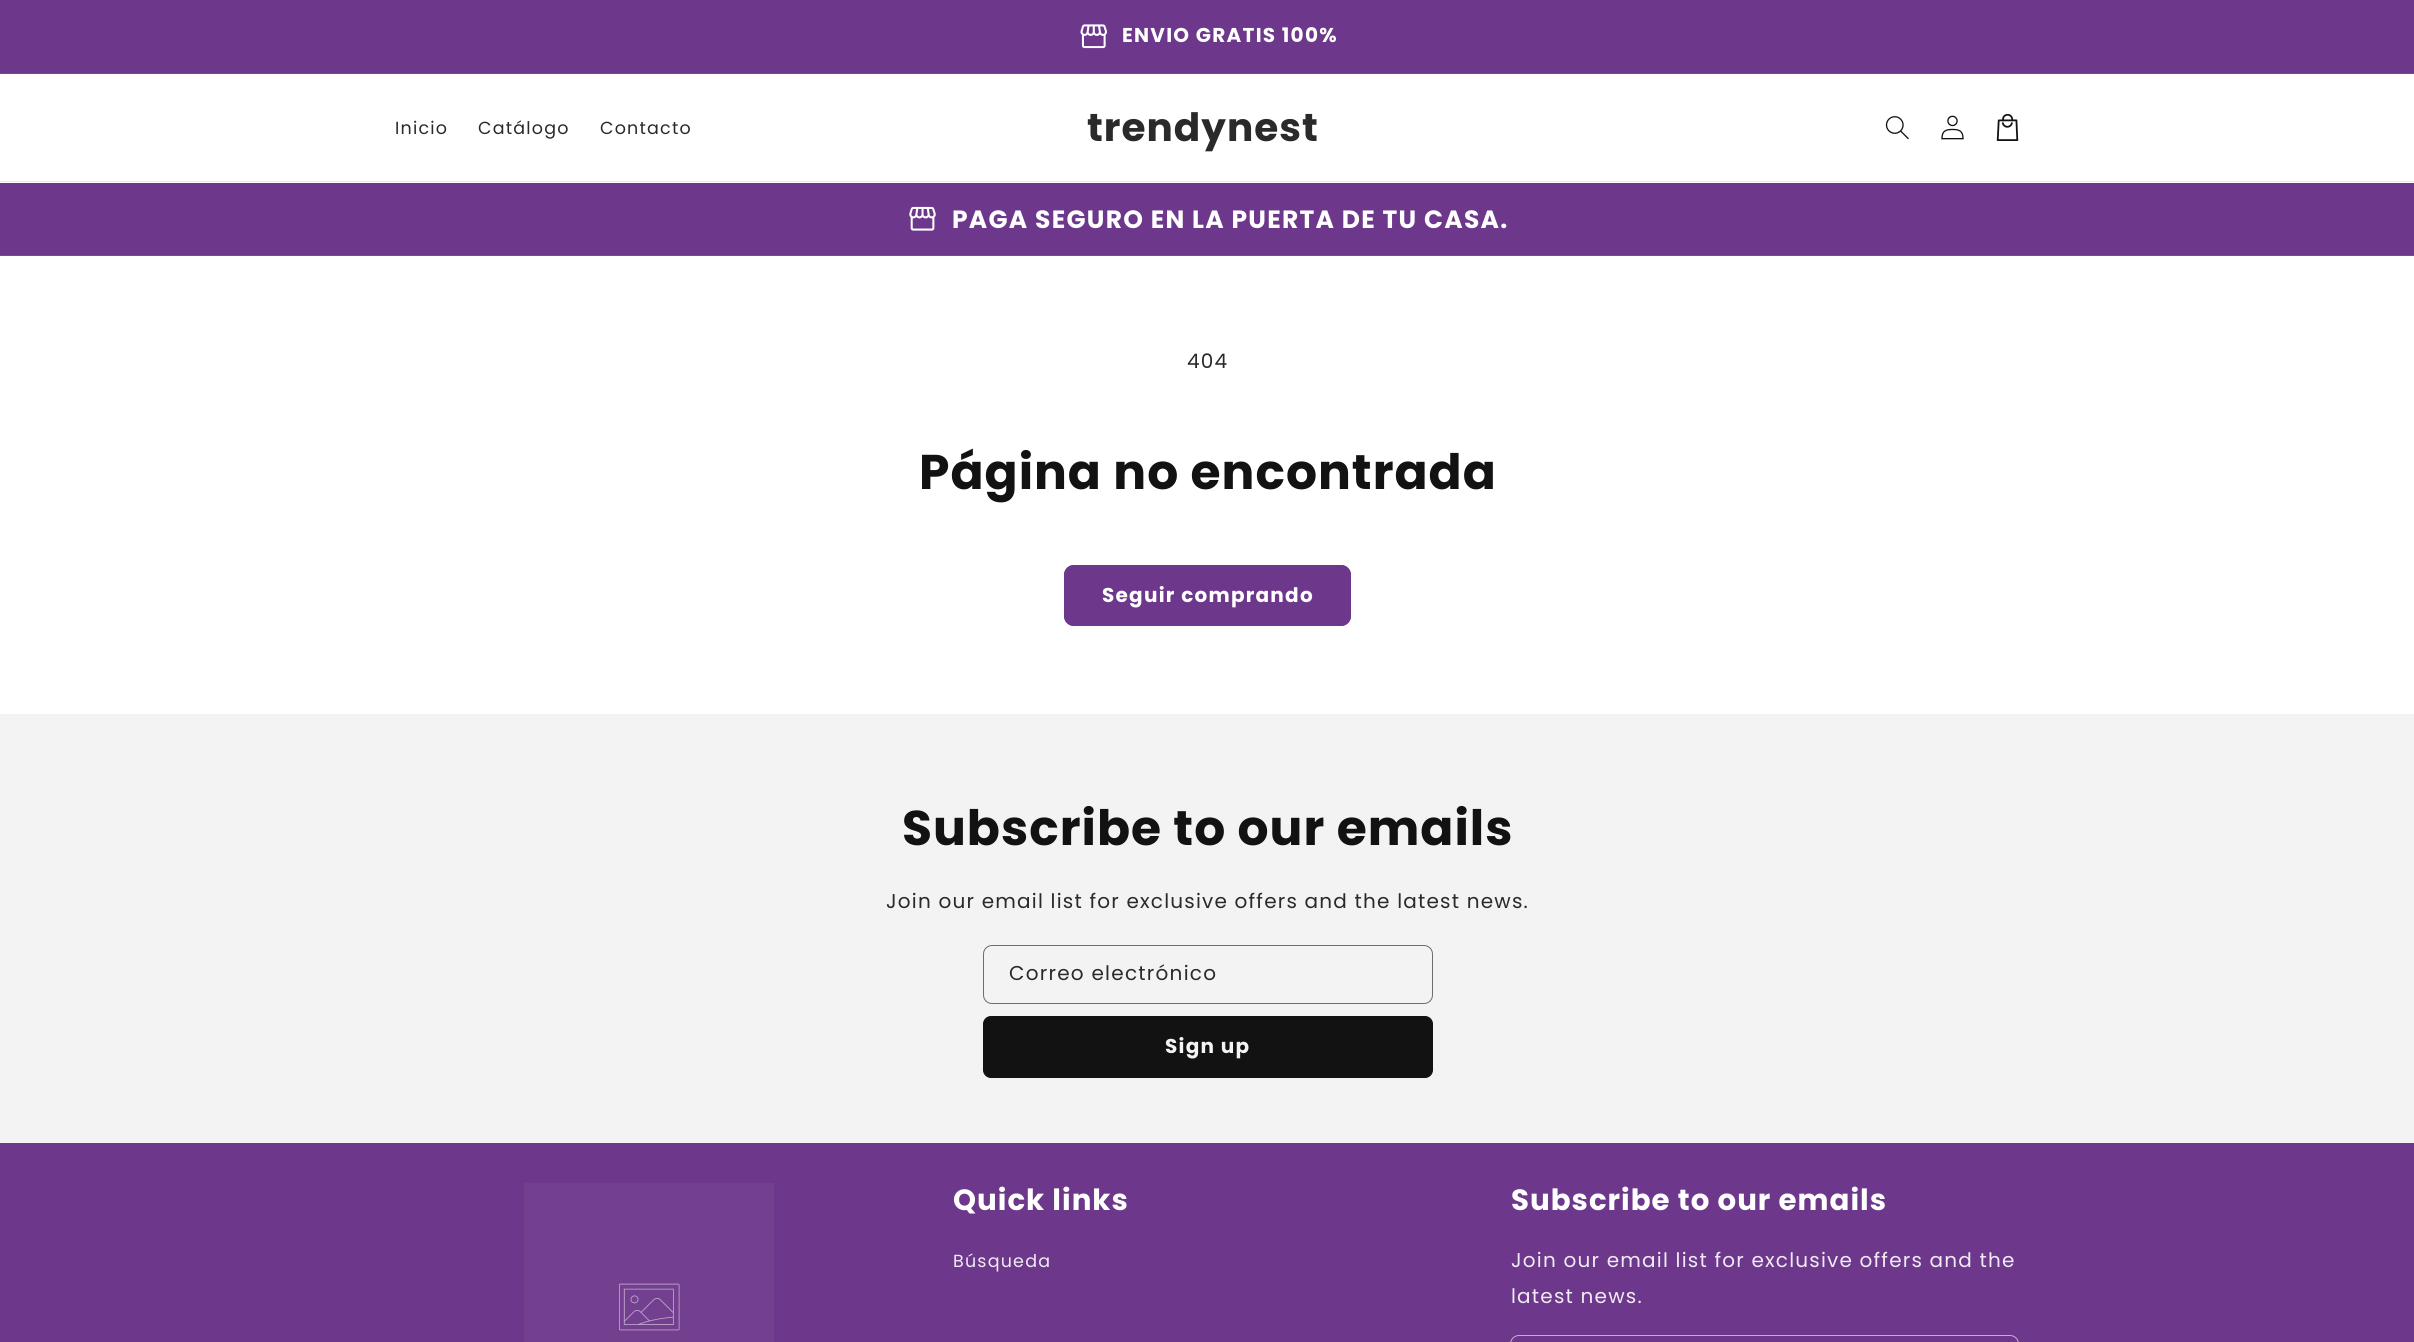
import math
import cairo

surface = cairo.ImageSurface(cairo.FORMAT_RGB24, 2414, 1342)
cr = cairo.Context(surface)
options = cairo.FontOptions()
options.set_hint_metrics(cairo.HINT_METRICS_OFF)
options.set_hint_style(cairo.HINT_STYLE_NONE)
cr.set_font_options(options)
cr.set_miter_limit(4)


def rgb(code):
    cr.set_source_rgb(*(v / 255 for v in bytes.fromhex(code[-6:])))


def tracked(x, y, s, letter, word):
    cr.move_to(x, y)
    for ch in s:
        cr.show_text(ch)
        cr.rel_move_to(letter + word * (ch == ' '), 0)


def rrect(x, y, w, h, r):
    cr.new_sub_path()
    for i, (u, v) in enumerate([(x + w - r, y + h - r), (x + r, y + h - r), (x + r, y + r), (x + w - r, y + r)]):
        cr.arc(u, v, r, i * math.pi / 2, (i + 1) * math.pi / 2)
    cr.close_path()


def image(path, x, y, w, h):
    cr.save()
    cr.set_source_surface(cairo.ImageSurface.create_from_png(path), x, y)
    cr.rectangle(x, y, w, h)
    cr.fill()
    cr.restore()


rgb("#ffffff")
cr.paint()
rgb("#6d388b")
cr.rectangle(0, 0, 2414, 73)
cr.fill()
rgb("#794894")
cr.rectangle(0, 73, 2414, 1)
cr.fill()
image("img/1.png", 1080, 24, 27, 25)
rgb("#ececec")
cr.rectangle(0, 181, 2414, 1)
cr.fill()
image("img/2.png", 1885, 116, 24, 24)
image("img/3.png", 1941, 115, 23, 25)
image("img/4.png", 1996, 114, 23, 27)
rgb("#6d388b")
cr.rectangle(0, 183, 2414, 72)
cr.fill()
rgb("#794894")
cr.rectangle(0, 255, 2414, 1)
cr.fill()
image("img/5.png", 909, 206, 27, 25)
rgb("#6d388b")
rrect(1064, 565, 287, 61, 10)
cr.fill()
rrect(1065.5, 566.5, 284, 58, 8.5)
cr.set_line_width(3)
cr.stroke()
rgb("#f3f3f3")
cr.rectangle(0, 714, 2414, 429)
cr.fill()
rrect(983.5, 945.5, 449, 58, 8.5)
rgb("#6c6c6c")
cr.set_line_width(1)
cr.stroke()
rrect(984.5, 1017.5, 447, 59, 8.5)
rgb("#121212")
cr.set_line_width(3)
cr.stroke()
rrect(983, 1016, 450, 62, 8)
cr.fill()
rgb("#6d388b")
cr.rectangle(0, 1143, 2414, 199)
cr.fill()
rgb("#734090")
cr.rectangle(524, 1183, 250, 159)
cr.fill()
image("img/6.png", 619, 1283, 61, 48)
rrect(1510.5, 1335.5, 508, 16, 8.5)
rgb("#c5afd1")
cr.set_line_width(1)
cr.stroke()
cr.select_font_face("Poppins", cairo.FONT_SLANT_NORMAL, cairo.FONT_WEIGHT_BOLD)
cr.set_font_size(20)
rgb("#ffffff")
tracked(1122, 42, "ENVIO GRATIS 100%", 1.25, 0)
cr.select_font_face("Poppins")
cr.set_font_size(17.5)
rgb("#2a2a2a")
for x, y, s in [
    (395, 134, "Inicio"),
    (478, 134, "Catálogo"),
    (600, 134, "Contacto"),
]:
    tracked(x, y, s, 1.2, 0)
cr.select_font_face("Poppins", cairo.FONT_SLANT_NORMAL, cairo.FONT_WEIGHT_BOLD)
cr.set_font_size(39)
tracked(1087, 141, "trendynest", 1, 0)
cr.set_font_size(25)
rgb("#ffffff")
tracked(952, 228, "PAGA SEGURO EN LA PUERTA DE TU CASA.", 1.25, 0)
cr.select_font_face("Poppins")
cr.set_font_size(20)
rgb("#2a2a2a")
tracked(1187, 368, "404", 1.2, 0)
cr.select_font_face("Poppins", cairo.FONT_SLANT_NORMAL, cairo.FONT_WEIGHT_BOLD)
cr.set_font_size(48.75)
rgb("#121212")
tracked(919, 489, "Página no encontrada", 1, 0)
cr.set_font_size(20)
rgb("#ffffff")
tracked(1102, 602, "Seguir comprando", 1.25, 0)
cr.set_font_size(48.75)
rgb("#121212")
tracked(902, 845, "Subscribe to our emails", 1, 0)
cr.select_font_face("Poppins")
cr.set_font_size(20)
rgb("#2a2a2a")
tracked(886, 908, "Join our email list for exclusive offers and the latest news.", 1.2, 0)
tracked(1009, 980, "Correo electrónico", 1.25, 0)
cr.select_font_face("Poppins", cairo.FONT_SLANT_NORMAL, cairo.FONT_WEIGHT_BOLD)
rgb("#f3f3f3")
tracked(1165, 1053, "Sign up", 1.25, 0)
cr.set_font_size(29.25)
rgb("#ffffff")
tracked(953, 1210, "Quick links", 1, 0)
cr.select_font_face("Poppins")
cr.set_font_size(17.5)
rgb("#f0ebf3")
tracked(953, 1267, "Búsqueda", 1.2, 0)
cr.select_font_face("Poppins", cairo.FONT_SLANT_NORMAL, cairo.FONT_WEIGHT_BOLD)
cr.set_font_size(29.25)
rgb("#ffffff")
tracked(1511, 1210, "Subscribe to our emails", 1, 0)
cr.select_font_face("Poppins")
cr.set_font_size(20)
rgb("#f0ebf3")
tracked(1511, 1267, "Join our email list for exclusive offers and the", 1.2, 0)
tracked(1511, 1303, "latest news.", 1.2, 0)
surface.write_to_png("page.png")
